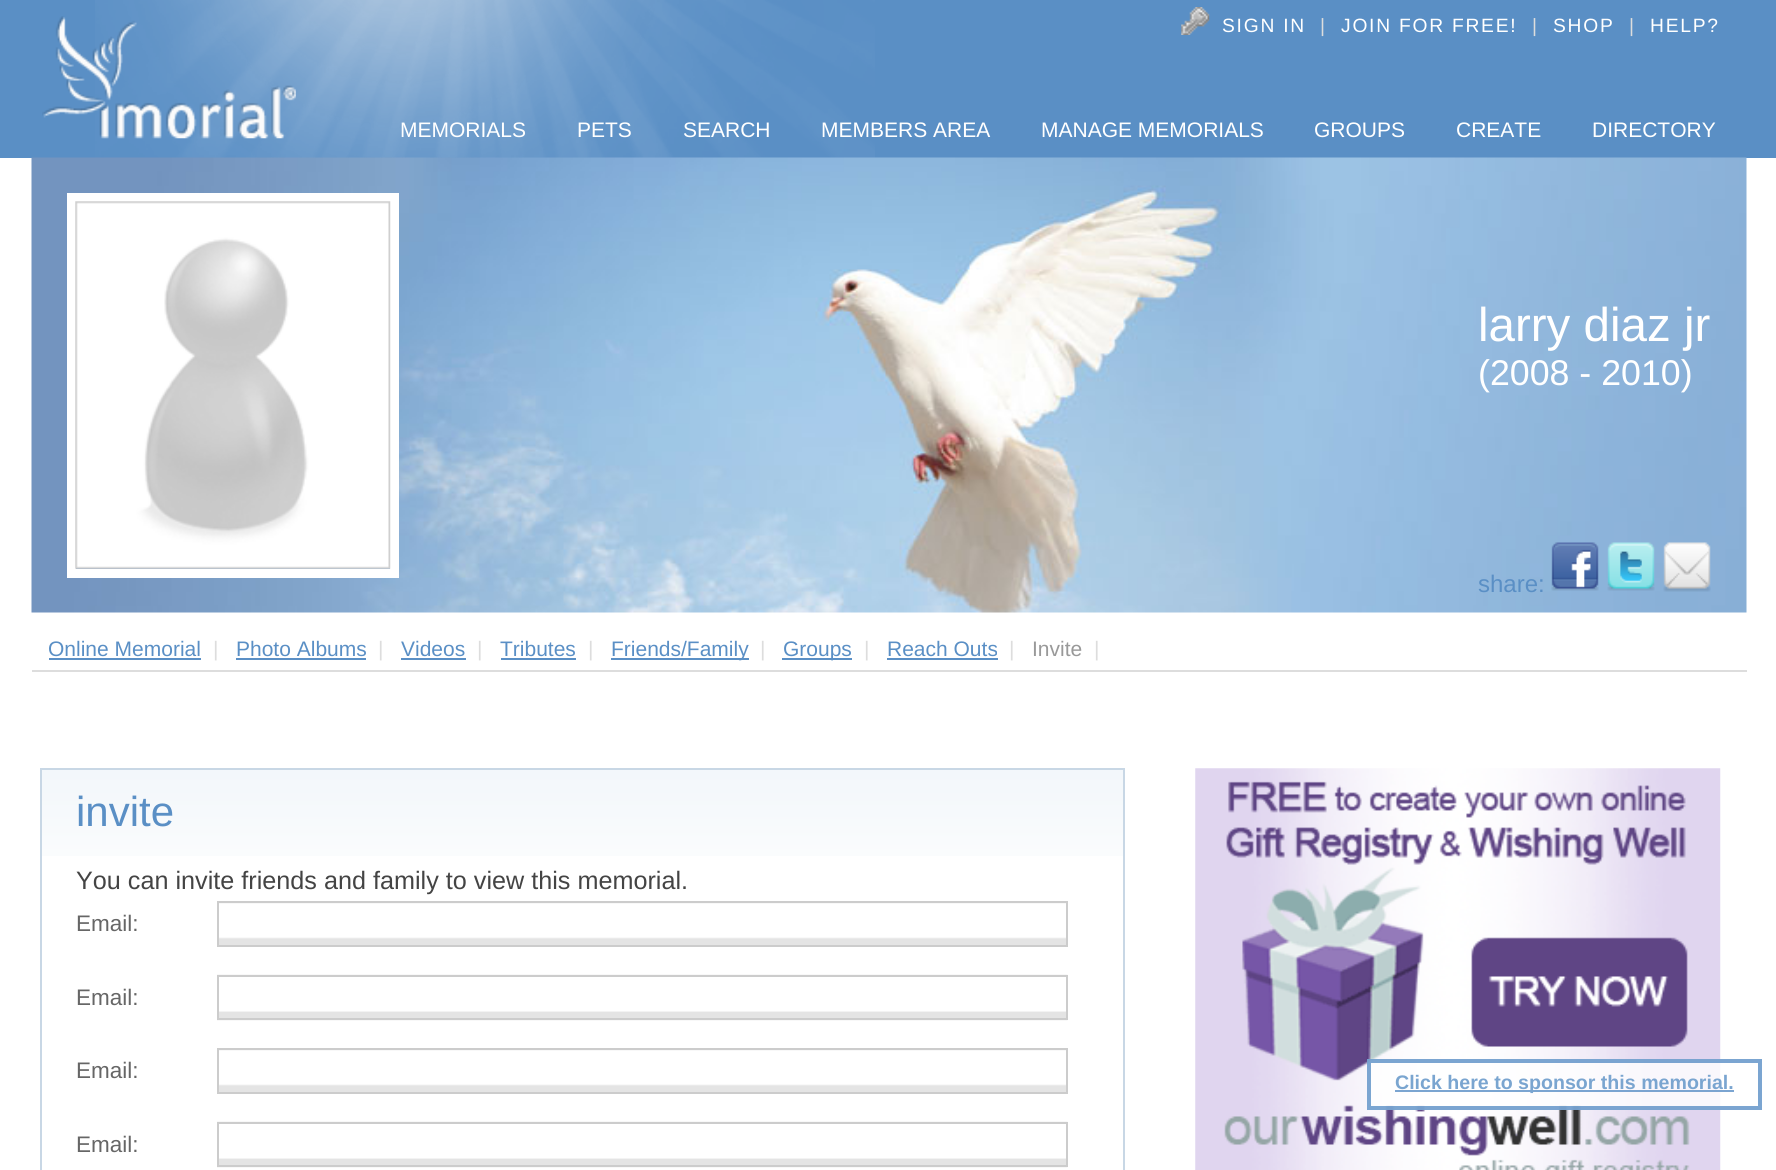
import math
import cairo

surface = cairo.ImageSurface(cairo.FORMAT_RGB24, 1776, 1170)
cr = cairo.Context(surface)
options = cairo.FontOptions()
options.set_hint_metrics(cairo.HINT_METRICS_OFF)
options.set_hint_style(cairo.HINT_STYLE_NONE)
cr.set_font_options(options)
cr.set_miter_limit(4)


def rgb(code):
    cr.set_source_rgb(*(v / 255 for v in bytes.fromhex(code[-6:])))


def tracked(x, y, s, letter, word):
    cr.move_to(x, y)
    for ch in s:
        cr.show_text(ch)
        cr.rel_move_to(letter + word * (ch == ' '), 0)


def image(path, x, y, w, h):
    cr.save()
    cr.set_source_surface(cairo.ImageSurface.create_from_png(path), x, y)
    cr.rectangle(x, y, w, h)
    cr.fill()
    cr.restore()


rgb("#ffffff")
cr.paint()
rgb("#5a8fc5")
cr.rectangle(0, 0, 1776, 158)
cr.fill()
image("img/4.png", 31, 157, 1716, 456)
image("img/1.png", 95, 0, 780, 158)
image("img/2.png", 42, 16, 254, 123)
image("img/3.png", 1181, 7, 29, 28)
cr.rectangle(71.5, 197.5, 323, 376)
rgb("#ffffff")
cr.set_line_width(9)
cr.stroke()
image("img/5.png", 75, 201, 316, 368)
image("img/6.png", 1551, 542, 48, 49)
image("img/7.png", 1607, 542, 48, 49)
image("img/8.png", 1663, 542, 48, 50)
for x, y, w, h, color in [
    (32, 670, 1715, 2, "#dddddd"),
    (49, 658, 152, 2, "#5a8fc5"),
    (236, 658, 130, 2, "#5a8fc5"),
    (401, 658, 65, 2, "#5a8fc5"),
    (501, 658, 75, 2, "#5a8fc5"),
    (611, 658, 138, 2, "#5a8fc5"),
    (782, 658, 70, 2, "#5a8fc5"),
    (887, 658, 111, 2, "#5a8fc5"),
]:
    rgb(color)
    cr.rectangle(x, y, w, h)
    cr.fill()
image("img/9.png", 42, 770, 1081, 86)
cr.rectangle(41, 769, 1083, 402)
rgb("#c8d7e5")
cr.set_line_width(2)
cr.stroke()
image("img/10.png", 219, 903, 847, 42)
cr.rectangle(218, 902, 849, 44)
rgb("#cccccc")
cr.stroke()
image("img/11.png", 217, 974, 851, 47)
cr.rectangle(218, 976, 849, 43)
cr.stroke()
image("img/10.png", 219, 1050, 847, 42)
cr.rectangle(218, 1049, 849, 44)
cr.stroke()
image("img/11.png", 217, 1121, 851, 47)
cr.rectangle(218, 1123, 849, 43)
cr.stroke()
image("img/12.png", 1195, 768, 526, 402)
cr.set_source_rgba(1, 1, 1, 0.8)
cr.rectangle(1367, 1059, 354, 51)
cr.fill()
cr.rectangle(1369, 1061, 391, 47)
cr.set_source_rgba(0.353, 0.561, 0.773, 0.8)
cr.set_line_width(4)
cr.stroke()
cr.rectangle(1395, 1090, 339, 2)
cr.fill()
cr.select_font_face("Liberation Sans")
cr.set_font_size(19.25)
rgb("#ffffff")
tracked(1222, 32, "SIGN IN", 1.75, 0)
rgb("#dddddd")
tracked(1320, 32, "|", 1.75, 0)
rgb("#ffffff")
tracked(1341, 32, "JOIN FOR FREE!", 1.75, 0)
rgb("#dddddd")
tracked(1532, 32, "|", 1.75, 0)
rgb("#ffffff")
tracked(1553, 32, "SHOP", 1.75, 0)
rgb("#dddddd")
tracked(1629, 32, "|", 1.75, 0)
rgb("#ffffff")
tracked(1650, 32, "HELP?", 1.75, 0)
cr.set_font_size(21)
for x, y, s in [
    (400, 137, "MEMORIALS"),
    (577, 137, "PETS"),
    (683, 137, "SEARCH"),
    (821, 137, "MEMBERS AREA"),
    (1041, 137, "MANAGE MEMORIALS"),
    (1314, 137, "GROUPS"),
    (1456, 137, "CREATE"),
    (1592, 137, "DIRECTORY"),
]:
    cr.move_to(x, y)
    cr.show_text(s)
cr.set_font_size(47.5)
cr.move_to(1478, 341)
cr.show_text("larry diaz jr")
cr.set_font_size(35.75)
cr.move_to(1478, 385)
cr.show_text("(2008 - 2010)")
cr.set_font_size(24)
rgb("#5a8fc5")
cr.move_to(1478, 592)
cr.show_text("share:")
cr.set_font_size(21)
cr.move_to(48, 656)
cr.show_text("Online Memorial")
rgb("#dddddd")
cr.move_to(213, 656)
cr.show_text("|")
rgb("#5a8fc5")
cr.move_to(236, 656)
cr.show_text("Photo Albums")
rgb("#dddddd")
cr.move_to(378, 656)
cr.show_text("|")
rgb("#5a8fc5")
cr.move_to(401, 656)
cr.show_text("Videos")
rgb("#dddddd")
cr.move_to(477, 656)
cr.show_text("|")
rgb("#5a8fc5")
cr.move_to(500, 656)
cr.show_text("Tributes")
rgb("#dddddd")
cr.move_to(588, 656)
cr.show_text("|")
rgb("#5a8fc5")
cr.move_to(611, 656)
cr.show_text("Friends/Family")
rgb("#dddddd")
cr.move_to(760, 656)
cr.show_text("|")
rgb("#5a8fc5")
cr.move_to(783, 656)
cr.show_text("Groups")
rgb("#dddddd")
cr.move_to(864, 656)
cr.show_text("|")
rgb("#5a8fc5")
cr.move_to(887, 656)
cr.show_text("Reach Outs")
rgb("#dddddd")
cr.move_to(1009, 656)
cr.show_text("|")
rgb("#999999")
cr.move_to(1032, 656)
cr.show_text("Invite")
rgb("#dddddd")
cr.move_to(1094, 656)
cr.show_text("|")
cr.set_font_size(42)
rgb("#5a8fc5")
cr.move_to(76, 826)
cr.show_text("invite")
cr.set_font_size(25.2)
rgb("#444444")
cr.move_to(76, 889)
cr.show_text("You can invite friends and family to view this memorial.")
cr.set_font_size(22.5)
rgb("#666666")
for x, y, s in [
    (76, 931, "Email:"),
    (76, 1005, "Email:"),
    (76, 1078, "Email:"),
    (76, 1152, "Email:"),
]:
    cr.move_to(x, y)
    cr.show_text(s)
cr.select_font_face("Liberation Sans", cairo.FONT_SLANT_NORMAL, cairo.FONT_WEIGHT_BOLD)
cr.set_font_size(19.6)
rgb("#7aa5d0")
cr.move_to(1395, 1089)
cr.show_text("Click here to sponsor this memorial.")
surface.write_to_png("page.png")
